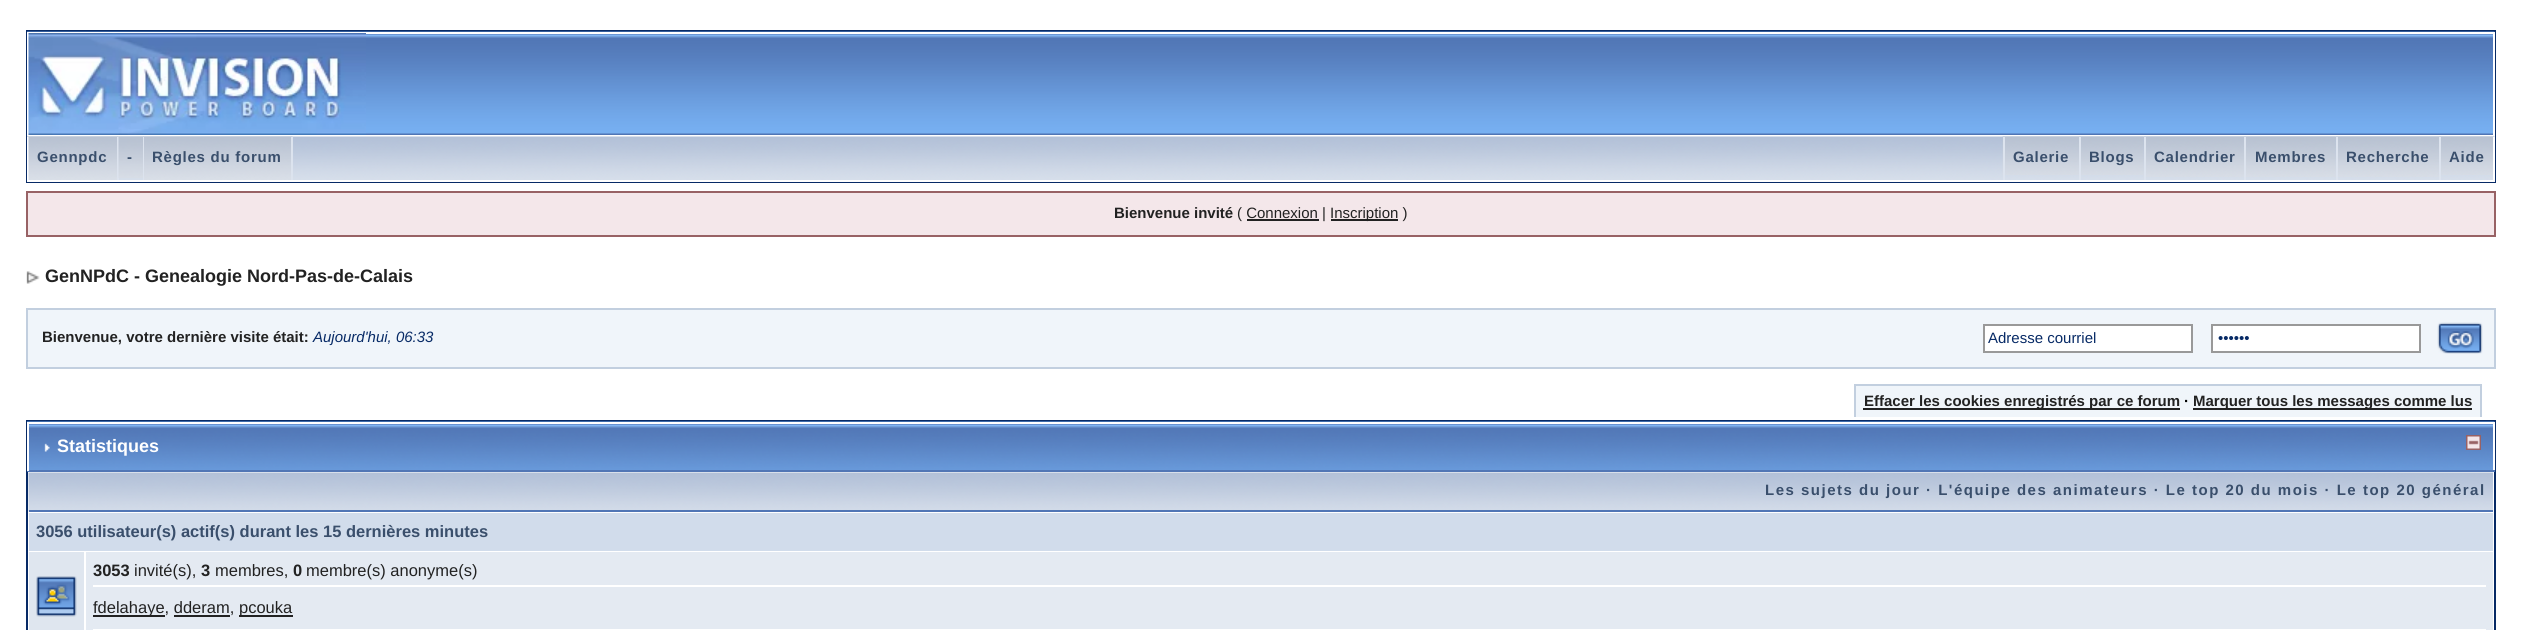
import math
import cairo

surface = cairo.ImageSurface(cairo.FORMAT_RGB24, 2521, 630)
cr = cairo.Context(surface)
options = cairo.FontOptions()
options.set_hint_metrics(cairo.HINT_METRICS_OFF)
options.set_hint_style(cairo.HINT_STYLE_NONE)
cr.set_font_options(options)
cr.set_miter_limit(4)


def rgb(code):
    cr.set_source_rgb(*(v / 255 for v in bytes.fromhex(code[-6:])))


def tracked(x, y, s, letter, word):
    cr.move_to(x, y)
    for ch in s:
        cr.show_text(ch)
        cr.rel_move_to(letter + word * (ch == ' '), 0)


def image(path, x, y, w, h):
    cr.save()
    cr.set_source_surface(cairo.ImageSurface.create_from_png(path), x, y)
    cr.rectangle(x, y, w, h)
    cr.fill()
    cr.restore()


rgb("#ffffff")
cr.paint()
cr.rectangle(27, 31, 2468, 151)
rgb("#072a66")
cr.stroke()
image("img/1.png", 27, 31, 2468, 104)
cr.rectangle(28, 33, 2466, 103)
rgb("#ffffff")
cr.stroke()
image("img/2.png", 28, 33, 338, 102)
image("img/3.png", 27, 136, 2468, 44)
for x, y, w, h, color in [
    (2493, 137, 2, 45, "#ffffff"),
    (27, 180, 2468, 2, "#ffffff"),
    (27, 137, 2, 45, "#ffffff"),
]:
    rgb(color)
    cr.rectangle(x, y, w, h)
    cr.fill()
image("img/4.png", 28, 136, 91, 44)
rgb("#dce3ee")
cr.rectangle(117, 137, 2, 43)
cr.fill()
image("img/5.png", 118, 136, 26, 42)
cr.rectangle(143, 137, 1, 43)
cr.fill()
image("img/6.png", 144, 136, 149, 44)
cr.rectangle(291, 137, 2, 43)
cr.fill()
image("img/7.png", 2002, 136, 77, 39)
cr.rectangle(2003, 137, 2, 43)
cr.fill()
image("img/9.png", 2143, 136, 101, 41)
image("img/8.png", 2079, 136, 65, 39)
cr.rectangle(2079, 137, 2, 43)
cr.fill()
cr.rectangle(2144, 137, 2, 43)
cr.fill()
image("img/11.png", 2335, 136, 104, 41)
image("img/10.png", 2244, 136, 92, 41)
cr.rectangle(2244, 137, 2, 43)
cr.fill()
cr.rectangle(2336, 137, 2, 43)
cr.fill()
image("img/12.png", 2439, 136, 54, 39)
cr.rectangle(2439, 137, 2, 43)
cr.fill()
rgb("#f4e7ea")
cr.rectangle(27, 192, 2468, 44)
cr.fill_preserve()
rgb("#986265")
cr.stroke()
rgb("#222222")
cr.rectangle(1331, 219, 67, 2)
cr.fill()
cr.rectangle(1247, 219, 72, 2)
cr.fill()
image("img/13.png", 26, 271, 14, 13)
rgb("#f0f5fa")
cr.rectangle(27, 309, 2468, 59)
cr.fill_preserve()
rgb("#c2cfdf")
cr.stroke()
rgb("#ffffff")
cr.rectangle(1984, 325, 208, 27)
cr.fill_preserve()
rgb("#999999")
cr.stroke()
rgb("#ffffff")
cr.rectangle(2212, 325, 208, 27)
cr.fill_preserve()
rgb("#999999")
cr.stroke()
image("img/14.png", 2437, 322, 46, 32)
for x, y, w, h, color in [
    (1854, 384, 627, 2, "#c2cfdf"),
    (1854, 384, 2, 33, "#c2cfdf"),
    (1856, 386, 624, 31, "#f0f5fa"),
    (1863, 408, 317, 2, "#222222"),
    (2480, 384, 2, 33, "#c2cfdf"),
    (2193, 408, 279, 2, "#222222"),
]:
    rgb(color)
    cr.rectangle(x, y, w, h)
    cr.fill()
cr.rectangle(27, 421, 2468, 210)
rgb("#072a66")
cr.stroke()
image("img/15.png", 27, 421, 2468, 49)
for x, y, w, h, color in [
    (27, 422, 2468, 2, "#ffffff"),
    (2493, 422, 2, 49, "#ffffff"),
    (27, 470, 2468, 2, "#5176b5"),
    (27, 422, 2, 49, "#ffffff"),
]:
    rgb(color)
    cr.rectangle(x, y, w, h)
    cr.fill()
image("img/16.png", 44, 443, 6, 9)
image("img/17.png", 2466, 435, 15, 15)
image("img/18.png", 28, 472, 2465, 40)
for x, y, w, h, color in [
    (29, 510, 2464, 2, "#5176b5"),
    (29, 513, 2464, 38, "#d1dceb"),
    (29, 552, 55, 78, "#dfe6ef"),
]:
    rgb(color)
    cr.rectangle(x, y, w, h)
    cr.fill()
image("img/19.png", 36, 576, 41, 41)
for x, y, w, h, color in [
    (86, 552, 2407, 78, "#e4eaf2"),
    (93, 585, 2393, 2, "#ffffff"),
    (93, 629, 2393, 1, "#ffffff"),
    (93, 615, 72, 2, "#222222"),
    (239, 615, 54, 2, "#222222"),
    (174, 615, 56, 2, "#222222"),
]:
    rgb(color)
    cr.rectangle(x, y, w, h)
    cr.fill()
cr.select_font_face("Liberation Sans", cairo.FONT_SLANT_NORMAL, cairo.FONT_WEIGHT_BOLD)
cr.set_font_size(15)
rgb("#3a4f6c")
for x, y, s in [
    (37, 162, "Gennpdc"),
    (127, 162, "-"),
    (152, 162, "Règles du forum"),
    (2013, 162, "Galerie"),
    (2089, 162, "Blogs"),
    (2154, 162, "Calendrier"),
    (2255, 162, "Membres"),
    (2346, 162, "Recherche"),
    (2449, 162, "Aide"),
]:
    tracked(x, y, s, 0.75, 0)
rgb("#222222")
cr.move_to(1114, 218)
cr.show_text("Bienvenue invité")
cr.select_font_face("Liberation Sans")
cr.move_to(1237, 218)
cr.show_text("( Connexion |")
cr.move_to(1330, 218)
cr.show_text("Inscription )")
cr.select_font_face("Liberation Sans", cairo.FONT_SLANT_NORMAL, cairo.FONT_WEIGHT_BOLD)
cr.set_font_size(18)
cr.move_to(45, 282)
cr.show_text("GenNPdC - Genealogie Nord-Pas-de-Calais")
cr.set_font_size(15)
cr.move_to(42, 342)
cr.show_text("Bienvenue, votre dernière visite était:")
cr.select_font_face("Liberation Sans", cairo.FONT_SLANT_ITALIC)
rgb("#072a66")
cr.move_to(313, 342)
cr.show_text("Aujourd'hui, 06:33")
cr.select_font_face("Liberation Sans")
cr.move_to(1988, 343)
cr.show_text("Adresse courriel")
cr.move_to(2218, 343)
cr.show_text("••••••")
cr.select_font_face("Liberation Sans", cairo.FONT_SLANT_NORMAL, cairo.FONT_WEIGHT_BOLD)
rgb("#222222")
cr.move_to(1864, 406)
cr.show_text("Effacer les cookies enregistrés par ce forum")
rgb("#000000")
cr.move_to(2184, 406)
cr.show_text("·")
rgb("#222222")
cr.move_to(2193, 406)
cr.show_text("Marquer tous les messages comme lus")
cr.set_font_size(18)
rgb("#ffffff")
cr.move_to(57, 452)
cr.show_text("Statistiques")
cr.set_font_size(15)
rgb("#3a4f6c")
tracked(1765, 495, "Les sujets du jour · L'équipe des animateurs · Le top 20 du mois · Le top 20 général", 1.5, 0)
cr.set_font_size(16.5)
cr.move_to(36, 537)
cr.show_text("3056 utilisateur(s) actif(s) durant les 15 dernières minutes")
rgb("#222222")
cr.move_to(93, 576)
cr.show_text("3053")
cr.select_font_face("Liberation Sans")
cr.move_to(134, 576)
cr.show_text("invité(s),")
cr.select_font_face("Liberation Sans", cairo.FONT_SLANT_NORMAL, cairo.FONT_WEIGHT_BOLD)
cr.move_to(201, 576)
cr.show_text("3")
cr.select_font_face("Liberation Sans")
cr.move_to(215, 576)
cr.show_text("membres,")
cr.select_font_face("Liberation Sans", cairo.FONT_SLANT_NORMAL, cairo.FONT_WEIGHT_BOLD)
cr.move_to(293, 576)
cr.show_text("0")
cr.select_font_face("Liberation Sans")
for x, y, s in [
    (306, 576, "membre(s) anonyme(s)"),
    (93, 613, "fdelahaye, dderam,"),
    (239, 613, "pcouka"),
]:
    cr.move_to(x, y)
    cr.show_text(s)
surface.write_to_png("page.png")
